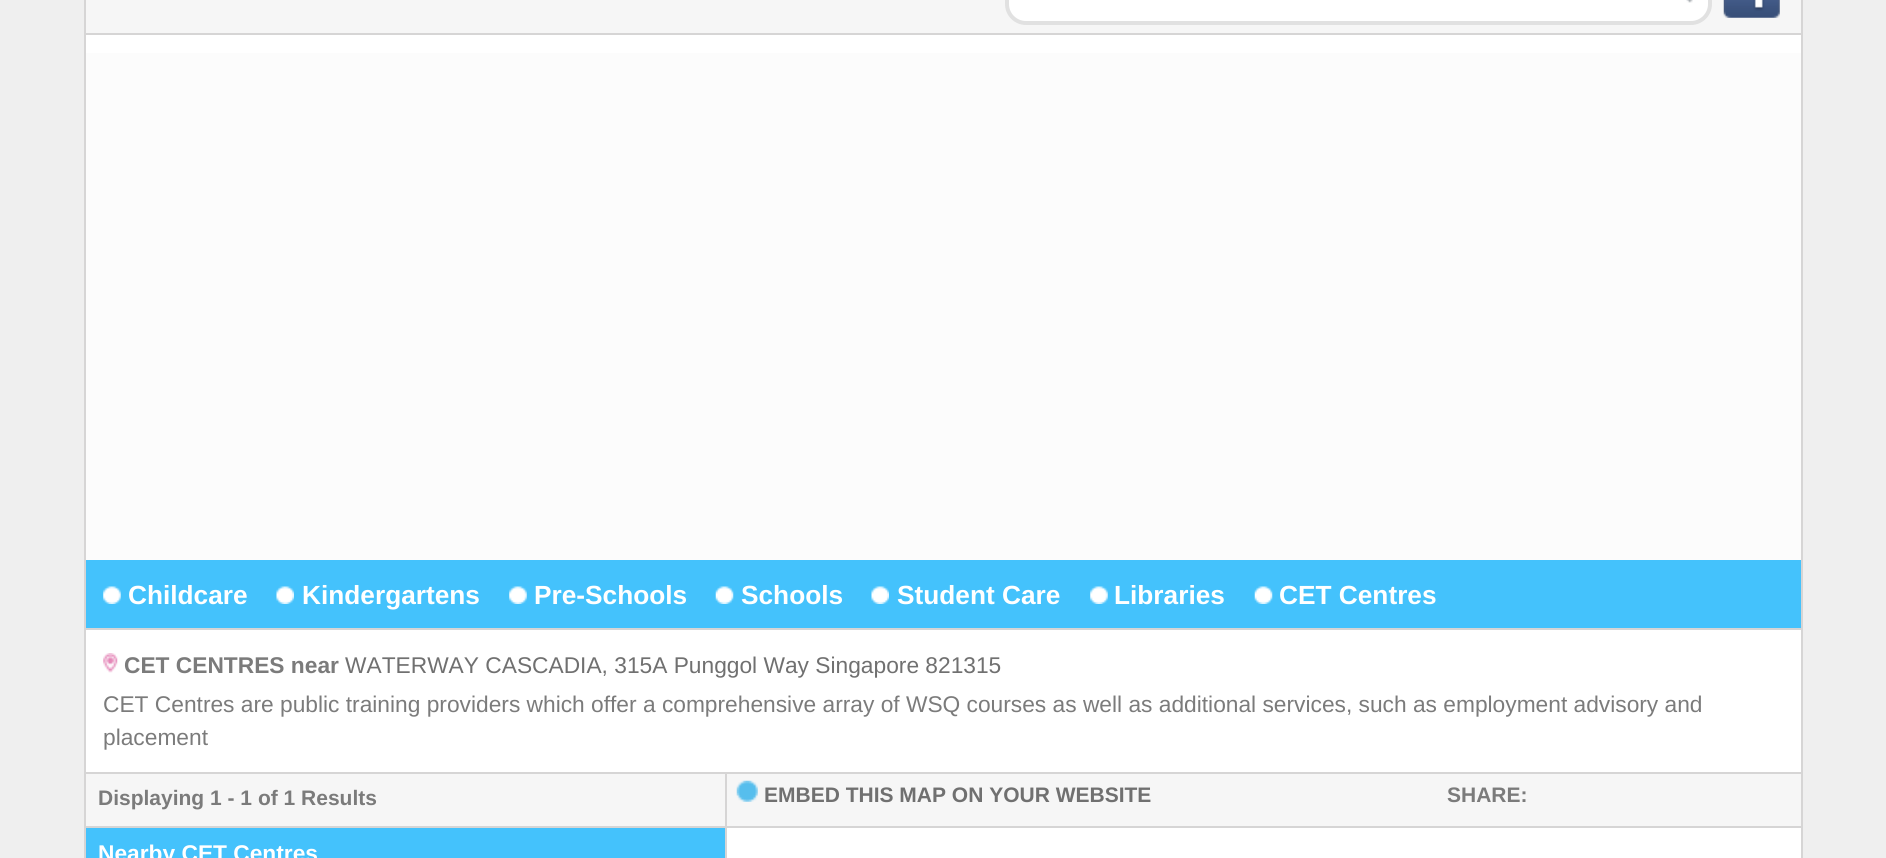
import math
import cairo

surface = cairo.ImageSurface(cairo.FORMAT_RGB24, 1886, 858)
cr = cairo.Context(surface)
options = cairo.FontOptions()
options.set_hint_metrics(cairo.HINT_METRICS_OFF)
options.set_hint_style(cairo.HINT_STYLE_NONE)
cr.set_font_options(options)
cr.set_miter_limit(4)


def rgb(code):
    cr.set_source_rgb(*(v / 255 for v in bytes.fromhex(code[-6:])))


def rrect(x, y, w, h, r):
    cr.new_sub_path()
    for i, (u, v) in enumerate([(x + w - r, y + h - r), (x + r, y + h - r), (x + r, y + r), (x + w - r, y + r)]):
        cr.arc(u, v, r, i * math.pi / 2, (i + 1) * math.pi / 2)
    cr.close_path()


def image(path, x, y, w, h):
    cr.save()
    cr.set_source_surface(cairo.ImageSurface.create_from_png(path), x, y)
    cr.rectangle(x, y, w, h)
    cr.fill()
    cr.restore()


rgb("#efefef")
cr.paint()
rgb("#ffffff")
cr.rectangle(86, 35, 1715, 823)
cr.fill()
cr.rectangle(85, -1, 1717, 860)
rgb("#d6d5d5")
cr.stroke()
rgb("#f6f6f6")
cr.rectangle(86, 0, 1715, 33)
cr.fill()
rgb("#d6d5d5")
cr.rectangle(86, 33, 1715, 2)
cr.fill()
rgb("#ffffff")
rrect(1007, -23, 703, 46, 19)
cr.fill_preserve()
rgb("#e1e1e1")
cr.set_line_width(4)
cr.stroke()
image("img/1.png", 1686, 0, 7, 3)
image("img/2.png", 1723, 0, 57, 18)
for x, y, w, h, color in [
    (86, 53, 1715, 507, "#fcfcfc"),
    (86, 560, 1715, 68, "#44c2fc"),
    (86, 628, 1715, 2, "#d6d5d5"),
]:
    rgb(color)
    cr.rectangle(x, y, w, h)
    cr.fill()
image("img/3.png", 103, 586, 18, 18)
image("img/4.png", 276, 586, 18, 18)
image("img/5.png", 509, 586, 18, 18)
image("img/6.png", 715, 586, 19, 18)
image("img/7.png", 871, 586, 18, 18)
image("img/5.png", 1090, 586, 18, 18)
image("img/8.png", 1254, 586, 19, 18)
cr.rectangle(86, 772, 1715, 2)
cr.fill()
image("img/9.png", 103, 653, 15, 20)
for x, y, w, h, color in [
    (86, 774, 639, 52, "#f6f6f6"),
    (86, 826, 1715, 2, "#d6d5d5"),
    (86, 828, 639, 30, "#44c2fc"),
    (727, 774, 1074, 52, "#f6f6f6"),
    (725, 774, 2, 84, "#d6d5d5"),
]:
    rgb(color)
    cr.rectangle(x, y, w, h)
    cr.fill()
image("img/10.png", 736, 780, 22, 22)
cr.select_font_face("Liberation Sans", cairo.FONT_SLANT_NORMAL, cairo.FONT_WEIGHT_BOLD)
cr.set_font_size(26.25)
rgb("#ffffff")
for x, y, s in [
    (128, 604, "Childcare"),
    (302, 604, "Kindergartens"),
    (534, 604, "Pre-Schools"),
    (741, 604, "Schools"),
    (897, 604, "Student Care"),
    (1114, 604, "Libraries"),
    (1279, 604, "CET Centres"),
]:
    cr.move_to(x, y)
    cr.show_text(s)
cr.set_font_size(22.75)
rgb("#7b7b7b")
cr.move_to(124, 673)
cr.show_text("CET CENTRES near")
cr.select_font_face("Liberation Sans")
rgb("#707070")
cr.move_to(345, 673)
cr.show_text("WATERWAY CASCADIA, 315A Punggol Way Singapore 821315")
rgb("#7b7b7b")
cr.move_to(103, 712)
cr.show_text("CET Centres are public training providers which offer a comprehensive array of WSQ courses as well as additional services, such as employment advisory and")
cr.move_to(103, 745)
cr.show_text("placement")
cr.select_font_face("Liberation Sans", cairo.FONT_SLANT_NORMAL, cairo.FONT_WEIGHT_BOLD)
cr.set_font_size(21)
cr.move_to(98, 805)
cr.show_text("Displaying 1 - 1 of 1 Results")
cr.set_font_size(22.75)
rgb("#ffffff")
cr.move_to(98, 861)
cr.show_text("Nearby CET Centres")
cr.set_font_size(21)
rgb("#707070")
cr.move_to(764, 802)
cr.show_text("EMBED THIS MAP ON YOUR WEBSITE")
rgb("#7b7b7b")
cr.move_to(1447, 802)
cr.show_text("SHARE:")
surface.write_to_png("page.png")
